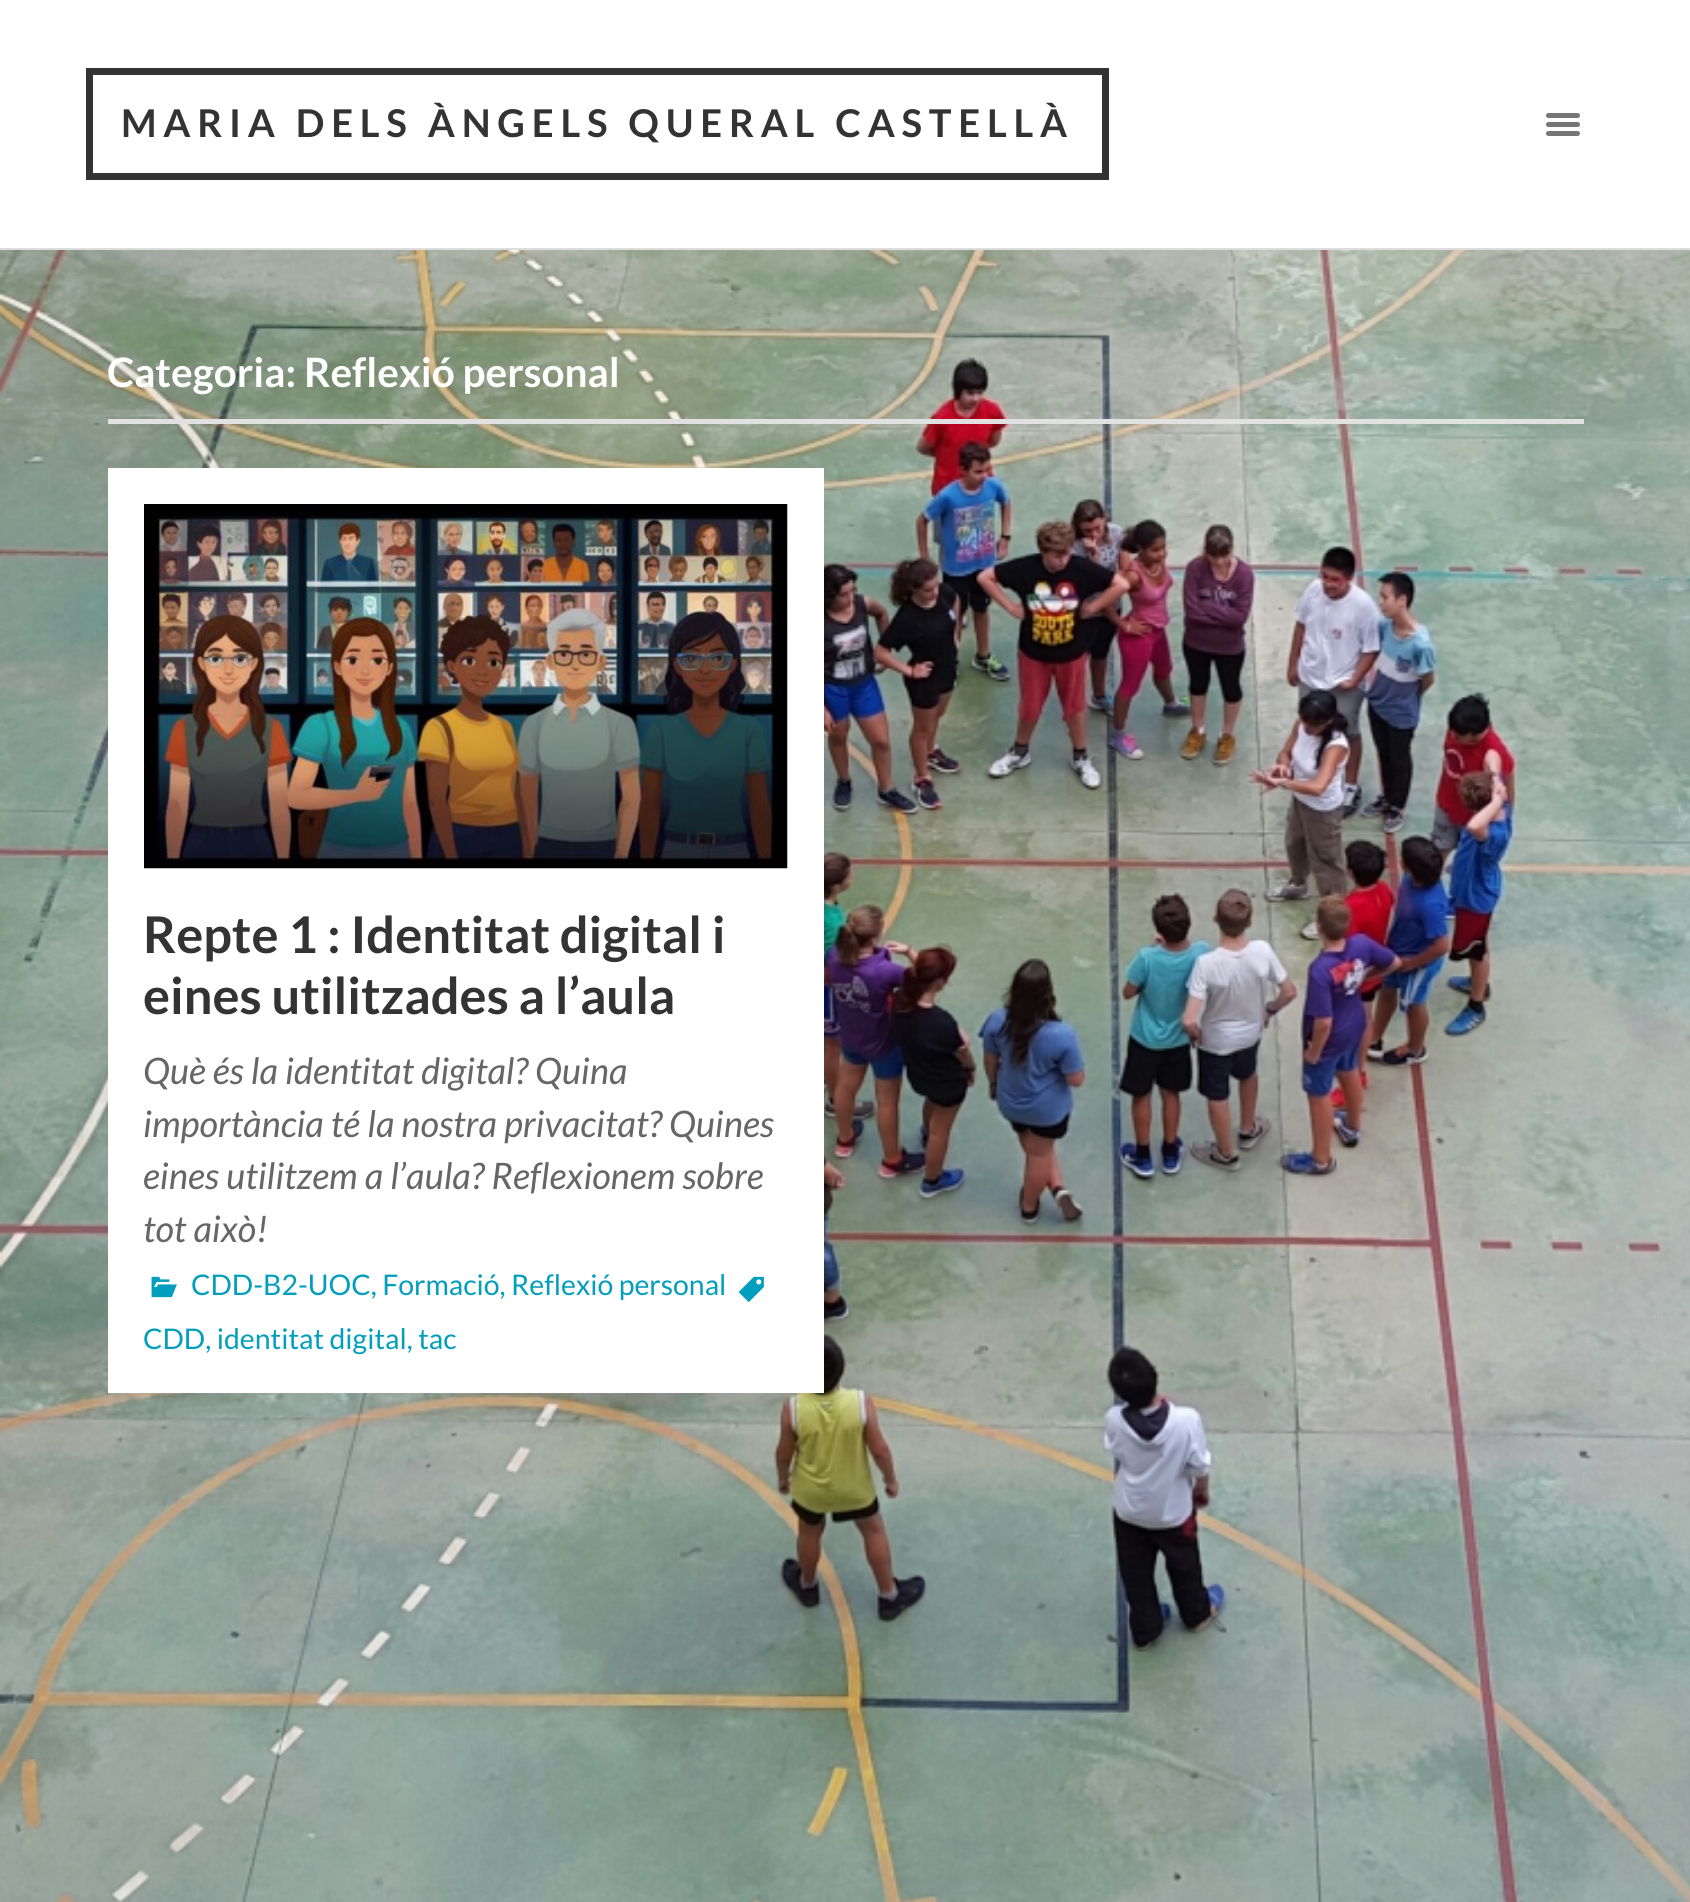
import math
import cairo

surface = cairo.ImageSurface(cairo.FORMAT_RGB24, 1690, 1902)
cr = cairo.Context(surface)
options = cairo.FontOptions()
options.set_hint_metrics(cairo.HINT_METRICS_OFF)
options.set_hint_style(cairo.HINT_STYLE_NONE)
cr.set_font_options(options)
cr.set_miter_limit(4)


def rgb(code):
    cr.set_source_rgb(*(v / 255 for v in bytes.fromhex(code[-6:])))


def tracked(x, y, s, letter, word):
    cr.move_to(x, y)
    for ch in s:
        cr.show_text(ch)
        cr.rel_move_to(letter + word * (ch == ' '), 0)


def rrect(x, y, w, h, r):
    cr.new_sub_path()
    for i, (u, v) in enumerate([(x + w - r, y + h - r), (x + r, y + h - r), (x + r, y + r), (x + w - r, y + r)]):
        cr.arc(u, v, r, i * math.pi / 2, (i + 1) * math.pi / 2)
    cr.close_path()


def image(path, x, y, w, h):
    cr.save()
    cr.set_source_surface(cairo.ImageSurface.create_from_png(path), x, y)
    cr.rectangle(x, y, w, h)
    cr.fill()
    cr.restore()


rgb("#ffffff")
cr.paint()
image("img/1.png", 0, 250, 1690, 1652)
rgb("#dddddd")
cr.rectangle(0, 248, 1690, 2)
cr.fill()
cr.rectangle(89.5, 71.5, 1016, 105)
rgb("#333333")
cr.set_line_width(7)
cr.stroke()
rgb("#767676")
rrect(1546, 113, 34, 5, 2.5)
cr.fill()
rrect(1546, 122, 34, 5, 2.5)
cr.fill()
rrect(1546, 131, 34, 5, 2.5)
cr.fill()
rgb("#e1e1e1")
cr.rectangle(108, 419, 1476, 5)
cr.fill()
rgb("#ffffff")
cr.rectangle(108, 468, 716, 925)
cr.fill()
image("img/2.png", 144, 504, 644, 365)
image("img/3.png", 151, 1276, 26, 22)
image("img/4.png", 738, 1276, 26, 27)
cr.select_font_face("Lato", cairo.FONT_SLANT_NORMAL, cairo.FONT_WEIGHT_BOLD)
cr.set_font_size(38.25)
rgb("#333333")
tracked(121, 137, "MARIA DELS ÀNGELS QUERAL CASTELLÀ", 6.75, 0)
cr.set_font_size(40.5)
rgb("#ffffff")
cr.move_to(107, 387)
cr.show_text("Categoria: Reflexió personal")
cr.set_font_size(50.6)
rgb("#333333")
cr.move_to(143, 953)
cr.show_text("Repte 1 : Identitat digital i")
cr.move_to(143, 1014)
cr.show_text("eines utilitzades a l’aula")
cr.select_font_face("Lato", cairo.FONT_SLANT_ITALIC)
cr.set_font_size(36.5)
rgb("#666666")
for x, y, s in [
    (143, 1084, "Què és la identitat digital? Quina"),
    (143, 1137, "importància té la nostra privacitat? Quines"),
    (143, 1189, "eines utilitzem a l’aula? Reflexionem sobre"),
    (143, 1242, "tot això!"),
]:
    cr.move_to(x, y)
    cr.show_text(s)
cr.select_font_face("Lato")
cr.set_font_size(28.4)
rgb("#019ebd")
cr.move_to(191, 1295)
cr.show_text("CDD-B2-UOC, Formació, Reflexió personal")
cr.move_to(143, 1349)
cr.show_text("CDD, identitat digital, tac")
surface.write_to_png("page.png")
